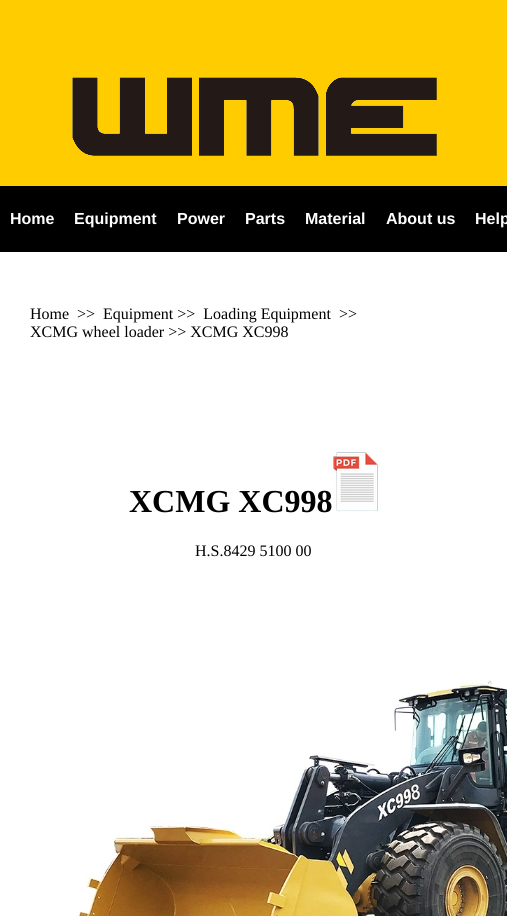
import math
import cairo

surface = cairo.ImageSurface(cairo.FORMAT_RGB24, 507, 916)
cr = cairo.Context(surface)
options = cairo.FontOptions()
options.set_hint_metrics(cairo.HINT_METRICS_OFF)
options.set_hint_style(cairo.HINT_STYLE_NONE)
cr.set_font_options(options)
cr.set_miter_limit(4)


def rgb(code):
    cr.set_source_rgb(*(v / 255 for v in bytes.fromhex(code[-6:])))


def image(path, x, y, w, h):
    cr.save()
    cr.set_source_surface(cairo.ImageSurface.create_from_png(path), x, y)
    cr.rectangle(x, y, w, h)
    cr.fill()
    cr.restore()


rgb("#ffffff")
cr.paint()
rgb("#ffcc00")
cr.rectangle(0, 0, 507, 186)
cr.fill()
image("img/1.png", 72, 77, 365, 79)
rgb("#000000")
cr.rectangle(0, 186, 507, 66)
cr.fill()
image("img/2.png", 333, 452, 45, 60)
image("img/3.png", 78, 680, 429, 236)
cr.select_font_face("Liberation Sans", cairo.FONT_SLANT_NORMAL, cairo.FONT_WEIGHT_BOLD)
cr.set_font_size(16)
rgb("#ffffff")
for x, y, s in [
    (10, 224, "Home"),
    (74, 224, "Equipment"),
    (177, 224, "Power"),
    (245, 224, "Parts"),
    (305, 224, "Material"),
    (386, 224, "About us"),
    (475, 224, "Help"),
]:
    cr.move_to(x, y)
    cr.show_text(s)
cr.select_font_face("Liberation Serif")
rgb("#000000")
for x, y, s in [
    (30, 319, "Home"),
    (77, 319, ">>  Equipment >>  Loading Equipment"),
    (339, 319, ">>"),
    (30, 337, "XCMG wheel loader >> XCMG XC998"),
]:
    cr.move_to(x, y)
    cr.show_text(s)
cr.select_font_face("Liberation Serif", cairo.FONT_SLANT_NORMAL, cairo.FONT_WEIGHT_BOLD)
cr.set_font_size(32)
cr.move_to(129, 512)
cr.show_text("XCMG XC998")
cr.select_font_face("Liberation Serif")
cr.set_font_size(16)
cr.move_to(195, 556)
cr.show_text("H.S.8429 5100 00")
surface.write_to_png("page.png")
